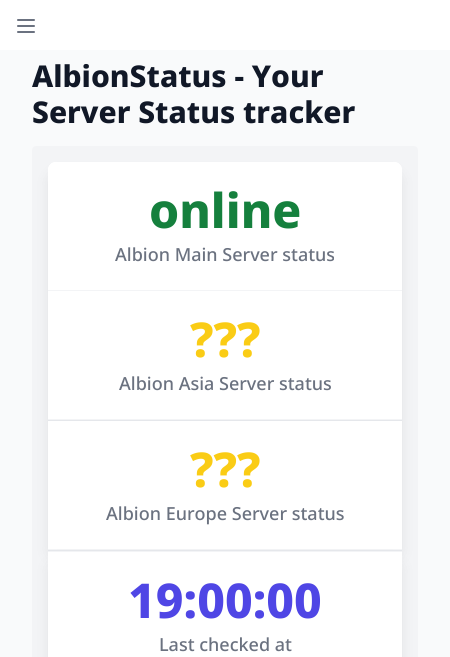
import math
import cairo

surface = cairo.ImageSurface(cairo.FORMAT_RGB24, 450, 657)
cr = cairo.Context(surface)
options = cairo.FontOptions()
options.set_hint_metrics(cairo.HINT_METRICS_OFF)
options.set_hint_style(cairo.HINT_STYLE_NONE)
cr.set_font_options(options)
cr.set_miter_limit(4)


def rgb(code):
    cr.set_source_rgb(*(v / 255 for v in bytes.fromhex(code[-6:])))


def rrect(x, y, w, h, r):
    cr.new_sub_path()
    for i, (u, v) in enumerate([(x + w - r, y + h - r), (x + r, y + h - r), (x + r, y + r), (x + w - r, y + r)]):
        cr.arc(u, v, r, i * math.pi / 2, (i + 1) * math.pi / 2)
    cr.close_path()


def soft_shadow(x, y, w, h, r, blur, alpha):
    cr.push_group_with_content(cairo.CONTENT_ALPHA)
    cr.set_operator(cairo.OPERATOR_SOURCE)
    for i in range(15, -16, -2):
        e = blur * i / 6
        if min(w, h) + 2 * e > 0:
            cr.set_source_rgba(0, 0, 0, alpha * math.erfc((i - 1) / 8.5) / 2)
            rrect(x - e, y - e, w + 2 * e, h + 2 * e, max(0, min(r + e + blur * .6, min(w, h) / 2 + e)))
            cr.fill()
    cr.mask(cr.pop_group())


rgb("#ffffff")
cr.paint()
cr.new_path()
cr.move_to(18, 20)
cr.line_to(34, 20)
cr.move_to(18, 26)
cr.line_to(34, 26)
cr.move_to(18, 32)
cr.line_to(34, 32)
rgb("#6b7280")
cr.set_line_cap(cairo.LINE_CAP_ROUND)
cr.set_line_join(cairo.LINE_JOIN_ROUND)
cr.stroke()
rgb("#f9fafb")
cr.rectangle(0, 50, 450, 607)
cr.fill()
rgb("#f3f4f6")
cr.new_path()
cr.move_to(36, 146)
cr.line_to(414, 146)
cr.curve_to(416, 146, 418, 148, 418, 150)
cr.line_to(418, 657)
cr.line_to(32, 657)
cr.line_to(32, 150)
cr.curve_to(32, 148, 34, 146, 36, 146)
cr.close_path()
cr.fill()
rgb("#000000")
soft_shadow(51, 175, 348, 382, 5, 7.5, 0.1)
rgb("#ffffff")
cr.new_path()
cr.move_to(56, 162)
cr.line_to(394, 162)
cr.curve_to(398.5, 162, 402, 165.5, 402, 170)
cr.line_to(402, 550)
cr.line_to(48, 550)
cr.line_to(48, 170)
cr.curve_to(48, 165.5, 51.5, 162, 56, 162)
cr.close_path()
cr.fill()
cr.new_path()
cr.move_to(56, 162)
cr.line_to(394, 162)
cr.curve_to(398.5, 162, 402, 165.5, 402, 170)
cr.line_to(402, 420)
cr.line_to(48, 420)
cr.line_to(48, 170)
cr.curve_to(48, 165.5, 51.5, 162, 56, 162)
cr.close_path()
cr.fill()
for x, y, w, h, color in [
    (48, 420, 354, 1, "#e5e7eb"),
    (48, 290, 354, 1, "#f3f4f6"),
    (48, 419, 354, 1, "#f3f4f6"),
    (48, 549, 354, 1, "#f3f4f6"),
]:
    rgb(color)
    cr.rectangle(x, y, w, h)
    cr.fill()
rgb("#000000")
soft_shadow(51, 563, 348, 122, 5, 7.5, 0.1)
for x, y, w, h, color in [
    (48, 552, 354, 105, "#ffffff"),
    (48, 550, 354, 1, "#e5e7eb"),
    (48, 551, 354, 1, "#f3f4f6"),
]:
    rgb(color)
    cr.rectangle(x, y, w, h)
    cr.fill()
cr.select_font_face("Noto Sans ExtraBold")
cr.set_font_size(30)
rgb("#111827")
cr.move_to(32, 87)
cr.show_text("AlbionStatus - Your")
cr.move_to(32, 123)
cr.show_text("Server Status tracker")
cr.set_font_size(48)
rgb("#15803d")
cr.move_to(149, 228)
cr.show_text("online")
cr.select_font_face("Noto Sans Medium")
cr.set_font_size(18)
rgb("#6b7280")
cr.move_to(115, 261)
cr.show_text("Albion Main Server status")
cr.select_font_face("Noto Sans ExtraBold")
cr.set_font_size(48)
rgb("#facc15")
cr.move_to(190, 357)
cr.show_text("???")
cr.select_font_face("Noto Sans Medium")
cr.set_font_size(18)
rgb("#6b7280")
cr.move_to(119, 390)
cr.show_text("Albion Asia Server status")
cr.select_font_face("Noto Sans ExtraBold")
cr.set_font_size(48)
rgb("#facc15")
cr.move_to(190, 487)
cr.show_text("???")
cr.select_font_face("Noto Sans Medium")
cr.set_font_size(18)
rgb("#6b7280")
cr.move_to(106, 520)
cr.show_text("Albion Europe Server status")
cr.select_font_face("Noto Sans ExtraBold")
cr.set_font_size(48)
rgb("#4f46e5")
cr.move_to(128, 618)
cr.show_text("19:00:00")
cr.select_font_face("Noto Sans Medium")
cr.set_font_size(18)
rgb("#6b7280")
cr.move_to(159, 651)
cr.show_text("Last checked at")
surface.write_to_png("page.png")
